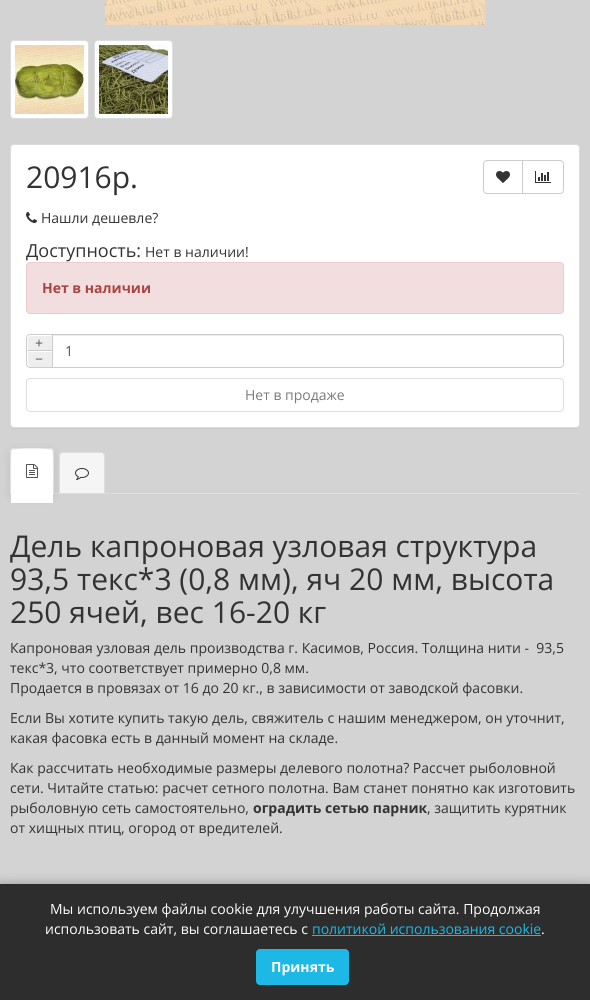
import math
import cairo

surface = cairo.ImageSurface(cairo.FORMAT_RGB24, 590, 1000)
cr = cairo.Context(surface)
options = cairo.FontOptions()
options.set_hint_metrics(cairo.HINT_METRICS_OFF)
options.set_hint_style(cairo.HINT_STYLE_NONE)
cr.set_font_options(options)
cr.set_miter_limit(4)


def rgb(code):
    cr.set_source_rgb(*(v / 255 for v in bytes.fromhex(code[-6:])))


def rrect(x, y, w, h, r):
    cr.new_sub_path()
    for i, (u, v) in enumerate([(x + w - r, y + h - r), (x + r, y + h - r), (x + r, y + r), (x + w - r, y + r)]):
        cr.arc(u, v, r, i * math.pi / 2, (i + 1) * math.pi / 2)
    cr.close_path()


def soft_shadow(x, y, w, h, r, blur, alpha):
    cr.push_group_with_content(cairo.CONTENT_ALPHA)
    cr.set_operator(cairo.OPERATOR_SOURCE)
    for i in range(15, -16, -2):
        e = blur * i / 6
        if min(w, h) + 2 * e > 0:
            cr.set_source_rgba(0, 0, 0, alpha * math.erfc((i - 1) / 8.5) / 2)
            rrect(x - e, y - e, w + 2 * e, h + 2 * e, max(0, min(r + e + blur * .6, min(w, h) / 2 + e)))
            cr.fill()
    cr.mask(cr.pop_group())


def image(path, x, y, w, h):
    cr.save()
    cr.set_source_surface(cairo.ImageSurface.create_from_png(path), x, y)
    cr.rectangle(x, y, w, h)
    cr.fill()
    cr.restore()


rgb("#d3d3d3")
cr.paint()
image("img/1.png", 105, 0, 380, 25)
rgb("#ffffff")
rrect(10.5, 40.5, 78, 78, 3.5)
cr.fill_preserve()
rgb("#dddddd")
cr.set_line_width(1)
cr.stroke()
image("img/2.png", 15, 45, 69, 69)
rgb("#ffffff")
rrect(94.5, 40.5, 78, 78, 3.5)
cr.fill_preserve()
rgb("#dddddd")
cr.stroke()
image("img/3.png", 99, 45, 69, 69)
rgb("#000000")
soft_shadow(10, 145, 570, 284, 4, 0.5, 0.05)
rgb("#ffffff")
rrect(10.5, 144.5, 569, 283, 3.5)
cr.fill_preserve()
rgb("#dddddd")
cr.stroke()
image("img/4.png", 26, 212, 11, 11)
cr.new_path()
cr.move_to(487, 160.5)
cr.line_to(522.5, 160.5)
cr.line_to(522.5, 193.5)
cr.line_to(487, 193.5)
cr.curve_to(485, 193.5, 483.5, 192, 483.5, 190)
cr.line_to(483.5, 164)
cr.curve_to(483.5, 162, 485, 160.5, 487, 160.5)
cr.close_path()
rgb("#cccccc")
cr.stroke()
image("img/5.png", 496, 171, 14, 12)
rgb("#ffffff")
cr.new_path()
cr.move_to(522.5, 160.5)
cr.line_to(560, 160.5)
cr.curve_to(562, 160.5, 563.5, 162, 563.5, 164)
cr.line_to(563.5, 190)
cr.curve_to(563.5, 192, 562, 193.5, 560, 193.5)
cr.line_to(522.5, 193.5)
cr.close_path()
cr.fill_preserve()
rgb("#cccccc")
cr.stroke()
image("img/6.png", 535, 171, 16, 12)
rgb("#f2dede")
rrect(26.5, 262.5, 537, 51, 3.5)
cr.fill_preserve()
rgb("#ebccd1")
cr.stroke()
rgb("#cccccc")
cr.set_fill_rule(cairo.FILL_RULE_EVEN_ODD)
cr.new_path()
cr.move_to(30, 334)
cr.line_to(52, 334)
cr.line_to(52, 368)
cr.line_to(30, 368)
cr.curve_to(28, 368, 26, 366, 26, 364)
cr.line_to(26, 338)
cr.curve_to(26, 336, 28, 334, 30, 334)
cr.close_path()
cr.move_to(30, 335)
cr.line_to(52, 335)
cr.line_to(52, 367)
cr.line_to(30, 367)
cr.curve_to(28.5, 367, 27, 365.5, 27, 364)
cr.line_to(27, 338)
cr.curve_to(27, 336.5, 28.5, 335, 30, 335)
cr.close_path()
cr.fill()
rgb("#eeeeee")
cr.new_path()
cr.move_to(31, 335)
cr.line_to(52, 335)
cr.line_to(52, 351)
cr.line_to(27, 351)
cr.line_to(27, 339)
cr.curve_to(27, 337, 29, 335, 31, 335)
cr.close_path()
cr.fill()
rgb("#ffffff")
cr.set_fill_rule(cairo.FILL_RULE_WINDING)
cr.new_path()
cr.move_to(31, 335)
cr.curve_to(30, 335, 29, 335.5, 28, 336)
cr.line_to(29, 337)
cr.curve_to(29.5, 336.5, 30, 336, 31, 336)
cr.line_to(51, 336)
cr.line_to(52, 335)
cr.close_path()
cr.fill()
rgb("#cccccc")
cr.new_path()
cr.move_to(52, 351)
cr.line_to(51, 350)
cr.line_to(28, 350)
cr.line_to(27, 351)
cr.close_path()
cr.fill()
rgb("#ffffff")
cr.new_path()
cr.move_to(27, 351)
cr.line_to(28, 350)
cr.line_to(28, 339)
cr.curve_to(28, 338, 28.5, 337.5, 29, 337)
cr.line_to(28, 336)
cr.curve_to(27.5, 337, 27, 338, 27, 339)
cr.close_path()
cr.fill()
rgb("#eeeeee")
cr.new_path()
cr.move_to(27, 351)
cr.line_to(52, 351)
cr.line_to(52, 367)
cr.line_to(31, 367)
cr.curve_to(29, 367, 27, 365, 27, 363)
cr.close_path()
cr.fill()
rgb("#ffffff")
cr.new_path()
cr.move_to(27, 351)
cr.line_to(28, 352)
cr.line_to(51, 352)
cr.line_to(52, 351)
cr.close_path()
cr.fill()
cr.new_path()
cr.move_to(28, 352)
cr.line_to(27, 351)
cr.line_to(27, 363)
cr.curve_to(27, 364, 27.5, 365, 28, 366)
cr.line_to(29, 365)
cr.curve_to(28.5, 364.5, 28, 364, 28, 363)
cr.close_path()
cr.fill()
rgb("#ececec")
cr.new_path()
cr.move_to(53, 336)
cr.line_to(560, 336)
cr.curve_to(562, 336, 563, 337, 563, 339)
cr.curve_to(563, 337, 562, 335, 560, 335)
cr.line_to(53, 335)
cr.close_path()
cr.fill()
cr.new_path()
cr.move_to(52.5, 334.5)
cr.line_to(560, 334.5)
cr.curve_to(562, 334.5, 563.5, 336, 563.5, 338)
cr.line_to(563.5, 364)
cr.curve_to(563.5, 366, 562, 367.5, 560, 367.5)
cr.line_to(52.5, 367.5)
cr.close_path()
rgb("#cccccc")
cr.stroke()
rrect(26.5, 378.5, 537, 33, 3.5)
rgb("#dedede")
cr.stroke()
rgb("#dddddd")
cr.rectangle(54, 493, 526, 1)
cr.fill()
rgb("#000000")
soft_shadow(10, 451, 44, 46, 4, 5, 0.1)
rgb("#ffffff")
cr.new_path()
cr.move_to(14, 448)
cr.line_to(50, 448)
cr.curve_to(52, 448, 54, 450, 54, 452)
cr.line_to(54, 494)
cr.line_to(10, 494)
cr.line_to(10, 452)
cr.curve_to(10, 450, 12, 448, 14, 448)
cr.close_path()
cr.fill()
rgb("#dddddd")
cr.new_path()
cr.move_to(14, 448)
cr.line_to(11, 449)
cr.line_to(12, 450)
cr.curve_to(13, 448, 51, 448, 52, 450)
cr.line_to(53, 449)
cr.line_to(50, 448)
cr.close_path()
cr.fill()
cr.new_path()
cr.move_to(54, 494)
cr.line_to(54, 452)
cr.curve_to(54, 451, 54, 450, 53, 449)
cr.line_to(52, 450)
cr.curve_to(54, 452, 53, 488, 53, 493)
cr.close_path()
cr.move_to(10, 494)
cr.line_to(11, 493)
cr.curve_to(11, 488, 10, 452, 12, 450)
cr.line_to(11, 449)
cr.line_to(10, 452)
cr.close_path()
cr.fill()
image("img/7.png", 26, 464, 12, 14)
rgb("#ffffff")
cr.rectangle(11, 494, 42, 9)
cr.fill()
rgb("#f5f5f5")
cr.new_path()
cr.move_to(63, 452.5)
cr.line_to(101, 452.5)
cr.curve_to(103, 452.5, 104.5, 454, 104.5, 456)
cr.line_to(104.5, 493.5)
cr.line_to(59.5, 493.5)
cr.line_to(59.5, 456)
cr.curve_to(59.5, 454, 61, 452.5, 63, 452.5)
cr.close_path()
cr.fill_preserve()
rgb("#dddddd")
cr.stroke()
image("img/8.png", 75, 468, 14, 12)
rgb("#000000")
soft_shadow(10, 887, 570, 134, 6, 5, 0.1)
soft_shadow(0, 882, 590, 116, 0, 5, 0.2)
rgb("#2d2d2d")
cr.rectangle(0, 884, 590, 116)
cr.fill()
rgb("#1eb8e7")
cr.rectangle(312, 935, 229, 1)
cr.fill()
rrect(256, 949, 93, 36, 4)
cr.fill()
cr.select_font_face("Open Sans")
cr.set_font_size(30)
rgb("#333333")
cr.move_to(26, 188)
cr.show_text("20916р.")
cr.set_font_size(14)
cr.move_to(41, 223)
cr.show_text("Нашли дешевле?")
cr.set_font_size(18)
cr.move_to(26, 257)
cr.show_text("Доступность:")
cr.set_font_size(14)
cr.move_to(145, 257)
cr.show_text("Нет в наличии!")
cr.select_font_face("Open Sans", cairo.FONT_SLANT_NORMAL, cairo.FONT_WEIGHT_BOLD)
rgb("#a94442")
cr.move_to(42, 293)
cr.show_text("Нет в наличии")
cr.select_font_face("Open Sans")
rgb("#555555")
for x, y, s in [
    (35, 348, "+"),
    (35, 364, "−"),
    (65, 356, "1"),
]:
    cr.move_to(x, y)
    cr.show_text(s)
rgb("#7a7a7a")
cr.move_to(245, 400)
cr.show_text("Нет в продаже")
cr.set_font_size(30)
rgb("#333333")
for x, y, s in [
    (10, 557, "Дель капроновая узловая структура"),
    (10, 590, "93,5 текс*3 (0,8 мм), яч 20 мм, высота"),
    (10, 623, "250 ячей, вес 16-20 кг"),
]:
    cr.move_to(x, y)
    cr.show_text(s)
cr.set_font_size(14)
for x, y, s in [
    (10, 653, "Капроновая узловая дель производства г. Касимов, Россия. Толщина нити -  93,5"),
    (10, 673, "текс*3, что соответствует примерно 0,8 мм."),
    (10, 693, "Продается в провязах от 16 до 20 кг., в зависимости от заводской фасовки."),
    (10, 723, "Если Вы хотите купить такую дель, свяжитель с нашим менеджером, он уточнит,"),
    (10, 743, "какая фасовка есть в данный момент на складе."),
    (10, 773, "Как рассчитать необходимые размеры делевого полотна? Рассчет рыболовной"),
    (10, 793, "сети. Читайте статью: расчет сетного полотна. Вам станет понятно как изготовить"),
    (10, 813, "рыболовную сеть самостоятельно,"),
]:
    cr.move_to(x, y)
    cr.show_text(s)
cr.select_font_face("Open Sans", cairo.FONT_SLANT_NORMAL, cairo.FONT_WEIGHT_BOLD)
cr.move_to(253, 813)
cr.show_text("оградить сетью парник")
cr.select_font_face("Open Sans")
cr.move_to(427, 813)
cr.show_text(", защитить курятник")
cr.move_to(10, 833)
cr.show_text("от хищных птиц, огород от вредителей.")
rgb("#ffffff")
cr.move_to(50, 914)
cr.show_text("Мы используем файлы cookie для улучшения работы сайта. Продолжая")
cr.move_to(45, 934)
cr.show_text("использовать сайт, вы соглашаетесь с")
rgb("#1eb8e7")
cr.move_to(312, 934)
cr.show_text("политикой использования cookie")
rgb("#ffffff")
cr.move_to(541, 934)
cr.show_text(".")
cr.select_font_face("Open Sans", cairo.FONT_SLANT_NORMAL, cairo.FONT_WEIGHT_BOLD)
cr.move_to(271, 972)
cr.show_text("Принять")
surface.write_to_png("page.png")
